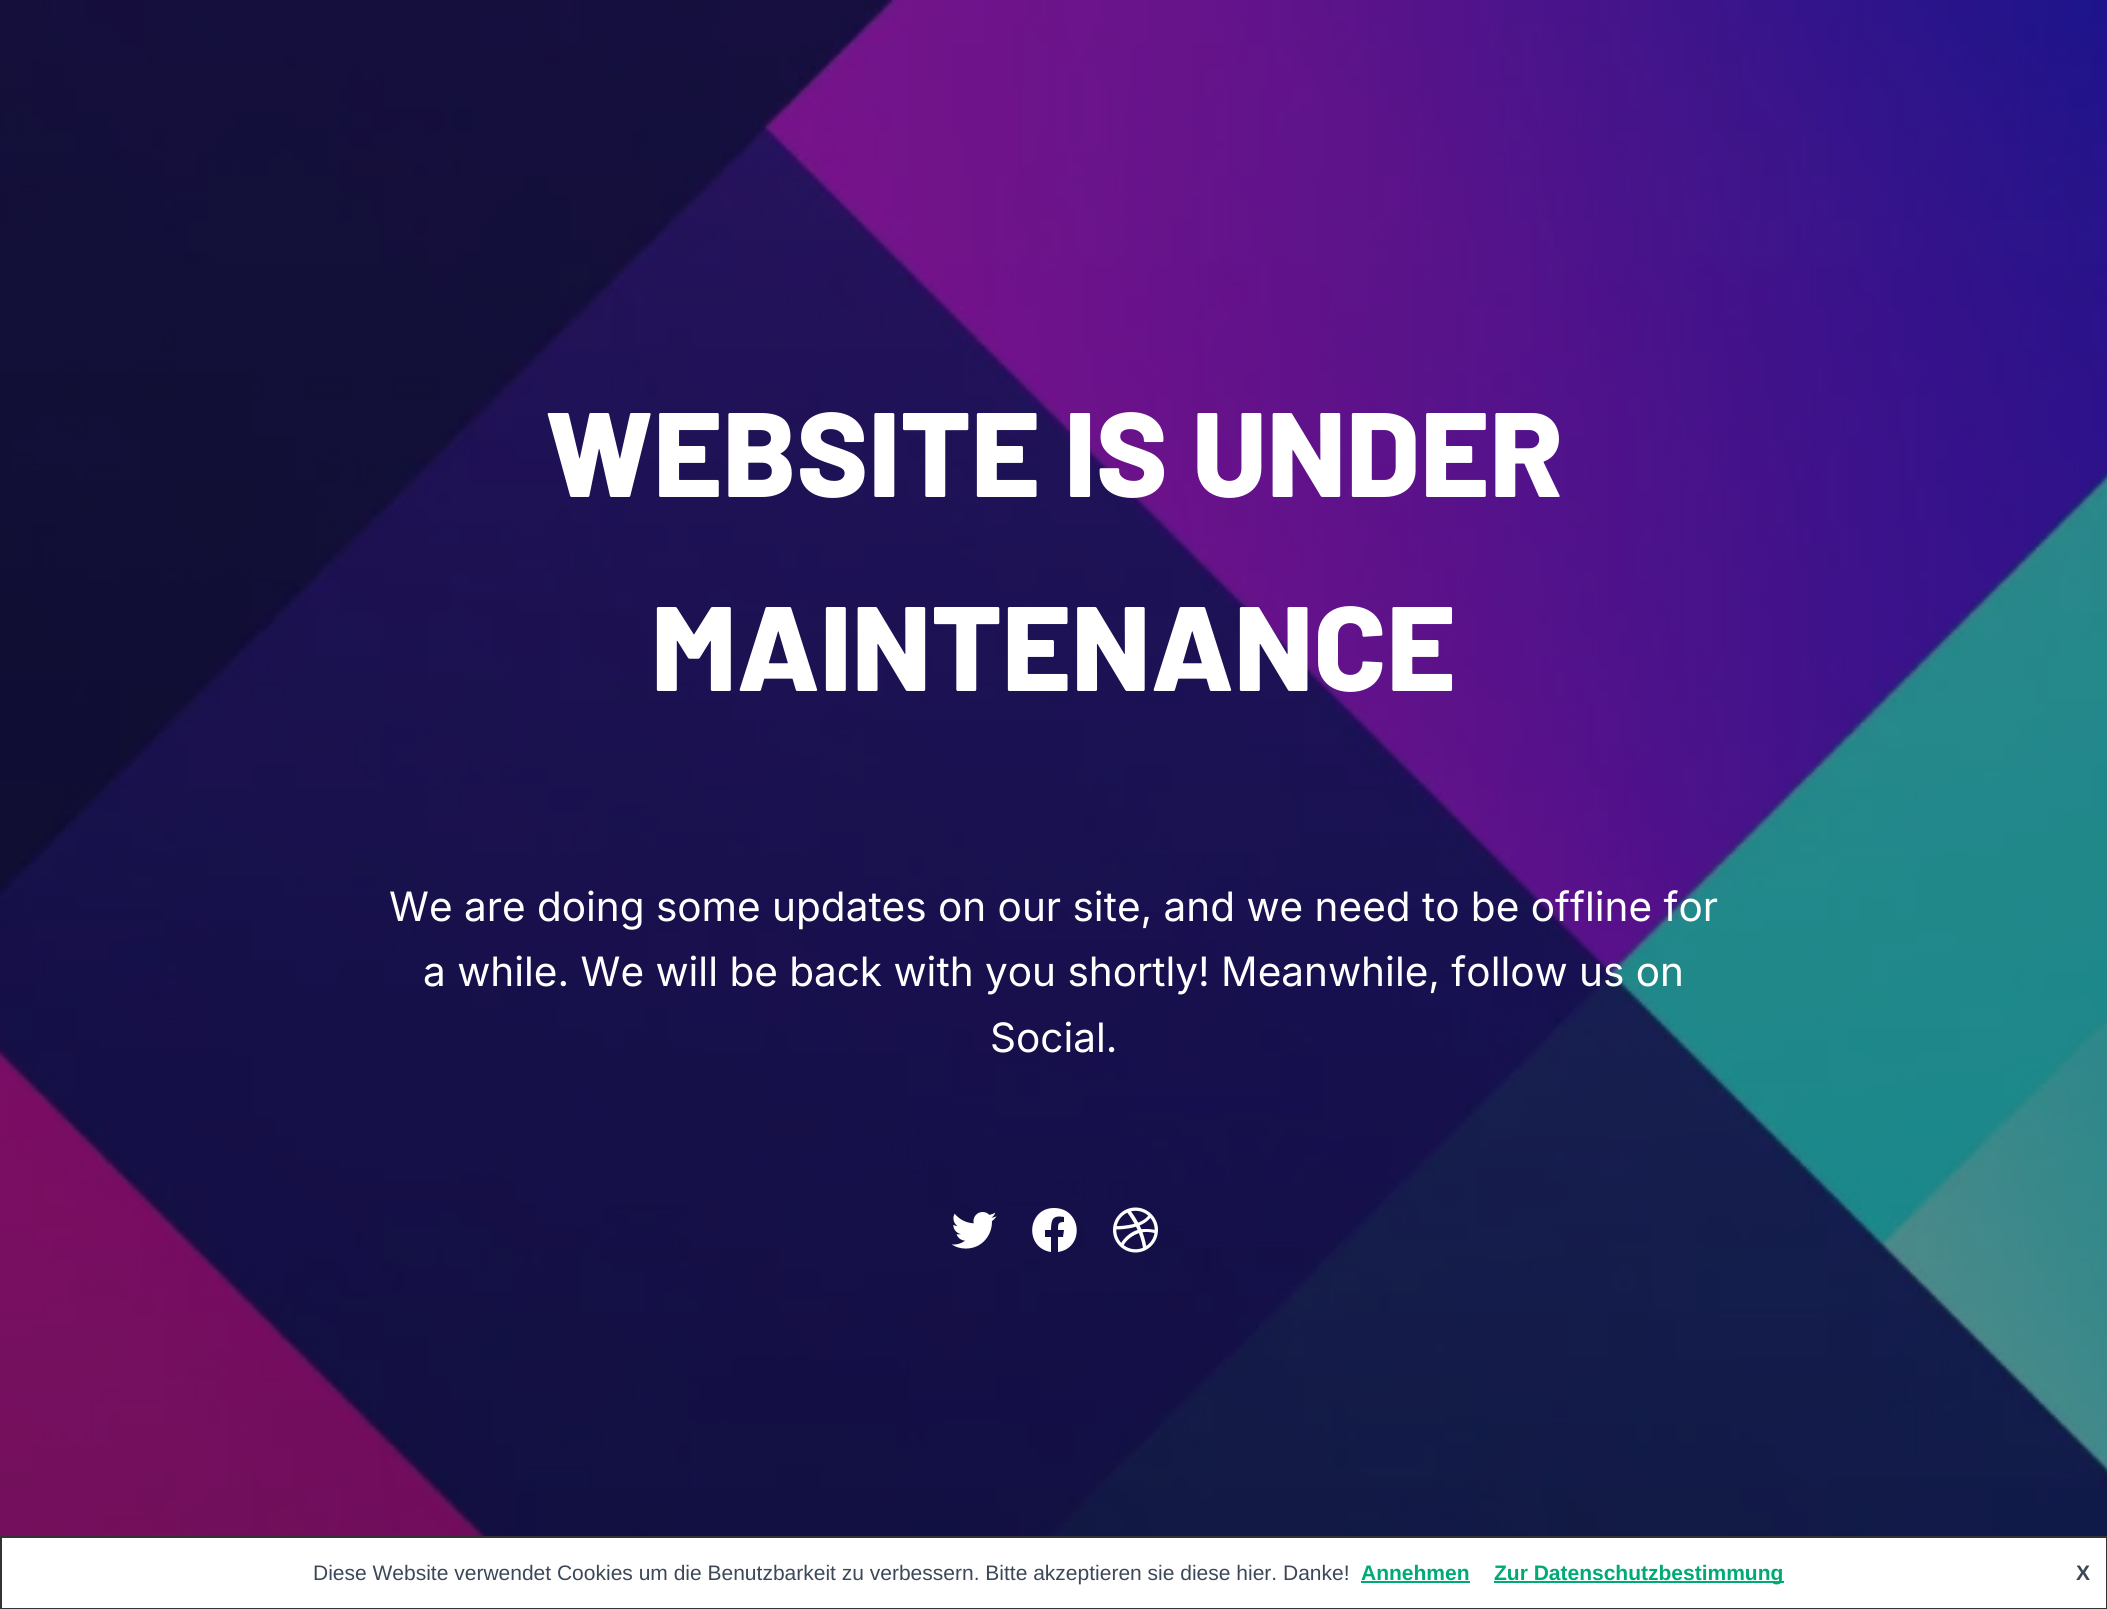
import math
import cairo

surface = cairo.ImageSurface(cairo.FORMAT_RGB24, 2107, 1609)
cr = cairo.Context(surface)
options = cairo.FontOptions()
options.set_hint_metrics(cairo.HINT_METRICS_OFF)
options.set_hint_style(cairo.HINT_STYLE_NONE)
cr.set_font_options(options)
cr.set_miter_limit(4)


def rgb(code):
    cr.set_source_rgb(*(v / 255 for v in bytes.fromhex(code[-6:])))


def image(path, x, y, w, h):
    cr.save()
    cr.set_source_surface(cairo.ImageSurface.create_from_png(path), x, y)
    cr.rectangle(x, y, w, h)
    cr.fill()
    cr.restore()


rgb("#191717")
cr.paint()
image("img/1.png", 0, 0, 2107, 1536)
image("img/2.png", 951, 1212, 46, 37)
rgb("#ffffff")
cr.new_path()
cr.move_to(1054, 1208)
cr.curve_to(1027, 1208, 1024, 1248, 1051, 1252)
cr.line_to(1051, 1237)
cr.line_to(1045, 1237)
cr.line_to(1045, 1230)
cr.line_to(1051, 1230)
cr.curve_to(1051, 1219, 1053, 1215, 1064, 1217)
cr.line_to(1064, 1222)
cr.curve_to(1058, 1222, 1058, 1224, 1058, 1230)
cr.line_to(1064, 1230)
cr.line_to(1063, 1237)
cr.line_to(1058, 1237)
cr.line_to(1058, 1252)
cr.curve_to(1085, 1248, 1082, 1208, 1054, 1208)
cr.close_path()
cr.fill()
image("img/3.png", 1113, 1207, 45, 46)
cr.rectangle(1, 1537, 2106, 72)
cr.fill_preserve()
rgb("#333333")
cr.stroke()
rgb("#00aa74")
cr.rectangle(1361, 1581, 109, 2)
cr.fill()
cr.rectangle(1494, 1581, 290, 2)
cr.fill()
cr.select_font_face("Barlow ExtraBold")
cr.set_font_size(120)
rgb("#ffffff")
cr.move_to(545, 497)
cr.show_text("WEBSITE IS UNDER")
cr.move_to(651, 691)
cr.show_text("MAINTENANCE")
cr.select_font_face("Inter")
cr.set_font_size(40.5)
for x, y, s in [
    (389, 921, "We are doing some updates on our site, and we need to be offline for"),
    (423, 986, "a while. We will be back with you shortly! Meanwhile, follow us on"),
    (990, 1052, "Social."),
]:
    cr.move_to(x, y)
    cr.show_text(s)
cr.select_font_face("Liberation Sans")
cr.set_font_size(21)
rgb("#3c4858")
cr.move_to(313, 1580)
cr.show_text("Diese Website verwendet Cookies um die Benutzbarkeit zu verbessern. Bitte akzeptieren sie diese hier. Danke!")
cr.select_font_face("Liberation Sans", cairo.FONT_SLANT_NORMAL, cairo.FONT_WEIGHT_BOLD)
rgb("#00aa74")
cr.move_to(1361, 1580)
cr.show_text("Annehmen")
cr.move_to(1494, 1580)
cr.show_text("Zur Datenschutzbestimmung")
rgb("#3c4858")
cr.move_to(2076, 1580)
cr.show_text("X")
surface.write_to_png("page.png")
